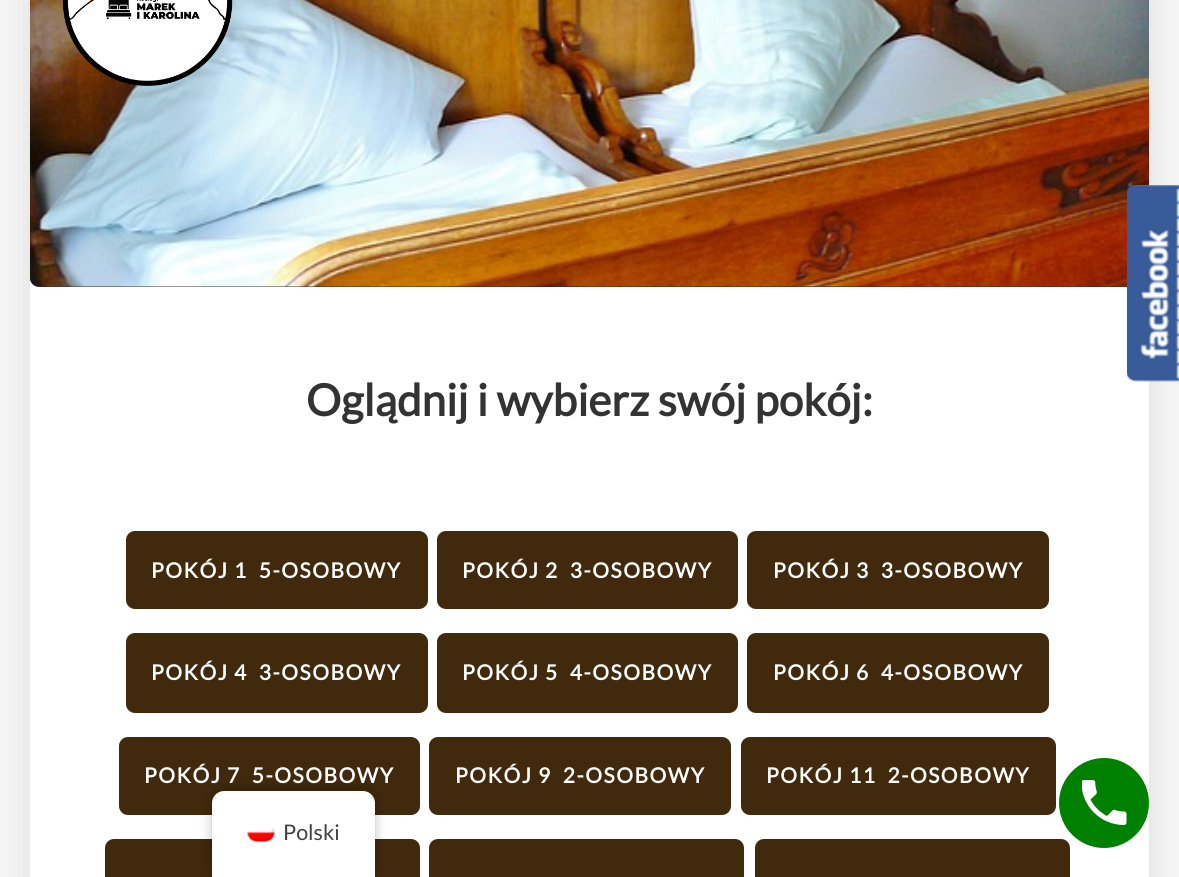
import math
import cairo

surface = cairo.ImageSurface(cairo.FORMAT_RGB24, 1179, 877)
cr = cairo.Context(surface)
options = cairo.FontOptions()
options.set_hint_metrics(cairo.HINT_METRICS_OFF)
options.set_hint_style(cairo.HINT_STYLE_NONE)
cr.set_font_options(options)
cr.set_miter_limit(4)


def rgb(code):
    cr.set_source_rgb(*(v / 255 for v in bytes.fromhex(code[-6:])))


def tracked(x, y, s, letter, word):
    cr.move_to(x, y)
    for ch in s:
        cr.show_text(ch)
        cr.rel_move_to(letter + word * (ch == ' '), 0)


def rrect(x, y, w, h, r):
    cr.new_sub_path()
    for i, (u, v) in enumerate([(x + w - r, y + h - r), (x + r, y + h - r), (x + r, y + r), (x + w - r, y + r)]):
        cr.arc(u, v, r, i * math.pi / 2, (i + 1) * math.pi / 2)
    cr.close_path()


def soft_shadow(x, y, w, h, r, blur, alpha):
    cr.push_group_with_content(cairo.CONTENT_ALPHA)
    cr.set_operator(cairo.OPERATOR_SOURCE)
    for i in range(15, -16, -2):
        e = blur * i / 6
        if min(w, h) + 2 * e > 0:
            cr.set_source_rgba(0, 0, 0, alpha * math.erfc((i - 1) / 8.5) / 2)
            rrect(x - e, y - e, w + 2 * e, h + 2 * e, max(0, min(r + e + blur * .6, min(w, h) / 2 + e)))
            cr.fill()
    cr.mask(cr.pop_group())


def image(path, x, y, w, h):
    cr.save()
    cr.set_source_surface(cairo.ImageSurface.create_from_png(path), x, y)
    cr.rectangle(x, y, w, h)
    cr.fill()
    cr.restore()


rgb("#f5f5f5")
cr.paint()
rgb("#000000")
soft_shadow(30, -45, 1119, 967, 0, 15, 0.1)
rgb("#ffffff")
cr.rectangle(30, 278, 1119, 599)
cr.fill()
rgb("#333333")
rrect(30, -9, 1119, 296, 9)
cr.fill()
image("img/3.png", 30, 0, 1119, 287)
image("img/1.png", 1127, 185, 52, 197)
image("img/2.png", 62, 0, 171, 86)
rgb("#40290c")
rrect(126, 531, 302, 78, 9)
cr.fill()
rrect(437, 531, 301, 78, 9)
cr.fill()
rrect(747, 531, 302, 78, 9)
cr.fill()
rrect(126, 633, 302, 80, 9)
cr.fill()
rrect(437, 633, 301, 80, 9)
cr.fill()
rrect(747, 633, 302, 80, 9)
cr.fill()
rrect(119, 737, 301, 78, 9)
cr.fill()
rrect(429, 737, 302, 78, 9)
cr.fill()
rrect(741, 737, 315, 78, 9)
cr.fill()
rrect(105, 839, 315, 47, 9)
cr.fill()
rrect(429, 839, 315, 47, 9)
cr.fill()
rrect(755, 839, 315, 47, 9)
cr.fill()
rgb("#000000")
soft_shadow(212, 791, 163, 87, 12, 6, 0.25)
rgb("#ffffff")
cr.new_path()
cr.move_to(224, 791)
cr.line_to(363, 791)
cr.curve_to(369.5, 791, 375, 796.5, 375, 803)
cr.line_to(375, 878)
cr.line_to(212, 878)
cr.line_to(212, 803)
cr.curve_to(212, 796.5, 217.5, 791, 224, 791)
cr.close_path()
cr.fill()
image("img/4.png", 247, 827, 28, 15)
rgb("#008000")
cr.arc(1104, 803, 45, 0, 2 * math.pi)
cr.fill()
image("img/5.png", 1082, 780, 45, 45)
cr.select_font_face("Lato", cairo.FONT_SLANT_NORMAL, cairo.FONT_WEIGHT_BOLD)
cr.set_font_size(43.9)
rgb("#333333")
cr.move_to(306, 416)
cr.show_text("Oglądnij i wybierz swój pokój:")
cr.set_font_size(21)
rgb("#ffffff")
for x, y, s in [
    (151, 578, "POKÓJ 1  5-OSOBOWY"),
    (462, 578, "POKÓJ 2  3-OSOBOWY"),
    (773, 578, "POKÓJ 3  3-OSOBOWY"),
    (151, 680, "POKÓJ 4  3-OSOBOWY"),
    (462, 680, "POKÓJ 5  4-OSOBOWY"),
    (773, 680, "POKÓJ 6  4-OSOBOWY"),
    (144, 783, "POKÓJ 7  5-OSOBOWY"),
    (455, 783, "POKÓJ 9  2-OSOBOWY"),
    (766, 783, "POKÓJ 11  2-OSOBOWY"),
]:
    tracked(x, y, s, 1.5, 0)
cr.select_font_face("Lato")
cr.set_font_size(21.5)
rgb("#404040")
cr.move_to(283, 840)
cr.show_text("Polski")
surface.write_to_png("page.png")
